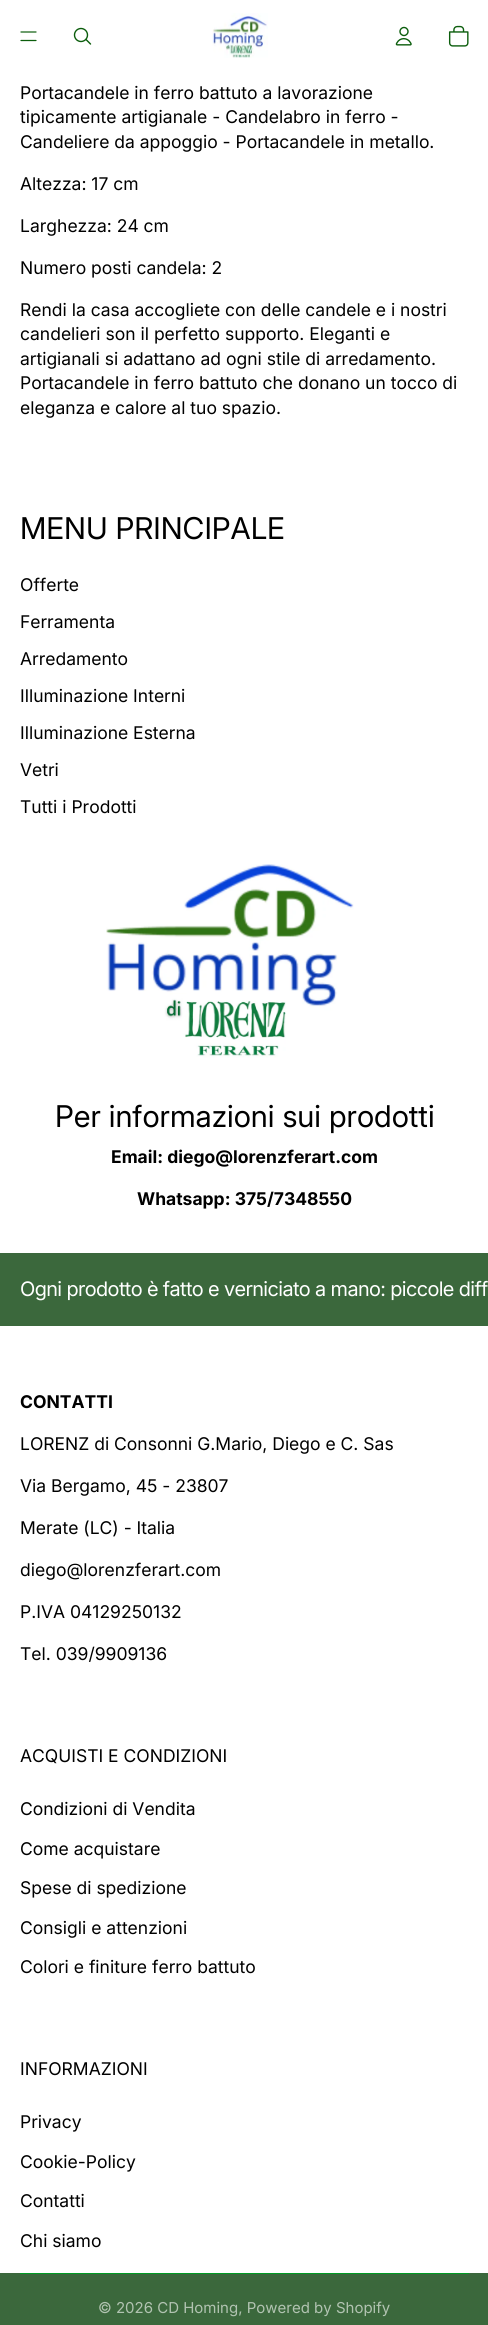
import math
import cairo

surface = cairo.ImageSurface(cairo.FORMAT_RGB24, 488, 2325)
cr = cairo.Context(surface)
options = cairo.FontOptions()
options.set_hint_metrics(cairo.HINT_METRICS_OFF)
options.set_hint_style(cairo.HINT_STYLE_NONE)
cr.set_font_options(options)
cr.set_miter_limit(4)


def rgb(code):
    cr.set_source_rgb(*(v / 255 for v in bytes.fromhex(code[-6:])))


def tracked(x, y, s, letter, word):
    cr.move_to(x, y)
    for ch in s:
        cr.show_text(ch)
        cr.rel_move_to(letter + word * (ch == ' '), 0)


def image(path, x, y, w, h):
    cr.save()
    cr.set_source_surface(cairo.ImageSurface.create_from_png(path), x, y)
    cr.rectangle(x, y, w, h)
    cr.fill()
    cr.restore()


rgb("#ffffff")
cr.paint()
cr.new_path()
cr.move_to(21, 32)
cr.line_to(36, 32)
cr.move_to(21, 40.5)
cr.line_to(36, 40.5)
rgb("#0b5d0c")
cr.set_line_width(1.2)
cr.set_line_cap(cairo.LINE_CAP_ROUND)
cr.stroke()
cr.arc(81, 35, 6.5, 0, 2 * math.pi)
cr.set_line_width(1.4)
cr.set_line_cap(cairo.LINE_CAP_BUTT)
cr.stroke()
cr.new_path()
cr.move_to(86, 39.5)
cr.line_to(90.5, 44)
cr.set_line_cap(cairo.LINE_CAP_ROUND)
cr.set_line_join(cairo.LINE_JOIN_ROUND)
cr.stroke()
image("img/1.png", 212, 13, 56, 45)
image("img/2.png", 395, 26, 17, 20)
image("img/3.png", 448, 25, 21, 22)
image("img/4.png", 106, 864, 248, 194)
for x, y, w, h, color in [
    (0, 1253, 488, 73, "#3b683c"),
    (0, 2273, 488, 52, "#3b683c"),
    (20, 2273, 449, 1, "#009c24"),
]:
    rgb(color)
    cr.rectangle(x, y, w, h)
    cr.fill()
cr.select_font_face("Inter")
cr.set_font_size(17.5)
rgb("#000000")
for x, y, s in [
    (20, 99, "Portacandele in ferro battuto a lavorazione"),
    (20, 123, "tipicamente artigianale - Candelabro in ferro -"),
    (20, 148, "Candeliere da appoggio - Portacandele in metallo."),
    (20, 190, "Altezza: 17 cm"),
    (20, 232, "Larghezza: 24 cm"),
    (20, 274, "Numero posti candela: 2"),
    (20, 316, "Rendi la casa accogliete con delle candele e i nostri"),
    (20, 340, "candelieri son il perfetto supporto. Eleganti e"),
    (20, 365, "artigianali si adattano ad ogni stile di arredamento."),
    (20, 389, "Portacandele in ferro battuto che donano un tocco di"),
    (20, 414, "eleganza e calore al tuo spazio."),
]:
    cr.move_to(x, y)
    cr.show_text(s)
cr.select_font_face("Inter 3")
cr.set_font_size(30)
cr.move_to(20, 539)
cr.show_text("MENU PRINCIPALE")
cr.select_font_face("Inter")
cr.set_font_size(17.5)
for x, y, s in [
    (20, 591, "Offerte"),
    (20, 628, "Ferramenta"),
    (20, 665, "Arredamento"),
    (20, 702, "Illuminazione Interni"),
    (20, 739, "Illuminazione Esterna"),
    (20, 776, "Vetri"),
    (20, 813, "Tutti i Prodotti"),
]:
    cr.move_to(x, y)
    cr.show_text(s)
cr.select_font_face("Inter 3")
cr.set_font_size(30)
cr.move_to(55, 1127)
cr.show_text("Per informazioni sui prodotti")
cr.select_font_face("Inter", cairo.FONT_SLANT_NORMAL, cairo.FONT_WEIGHT_BOLD)
cr.set_font_size(17.5)
cr.move_to(111, 1163)
cr.show_text("Email: diego@lorenzferart.com")
cr.move_to(137, 1205)
cr.show_text("Whatsapp: 375/7348550")
cr.select_font_face("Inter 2")
cr.set_font_size(20)
rgb("#ffffff")
tracked(20, 1296, "Ogni prodotto è fatto e verniciato a mano: piccole diff", -0.6, 0)
cr.select_font_face("Inter", cairo.FONT_SLANT_NORMAL, cairo.FONT_WEIGHT_BOLD)
cr.set_font_size(17.5)
rgb("#000000")
cr.move_to(20, 1408)
cr.show_text("CONTATTI")
cr.select_font_face("Inter")
for x, y, s in [
    (20, 1450, "LORENZ di Consonni G.Mario, Diego e C. Sas"),
    (20, 1492, "Via Bergamo, 45 - 23807"),
    (20, 1534, "Merate (LC) - Italia"),
    (20, 1576, "diego@lorenzferart.com"),
    (20, 1618, "P.IVA 04129250132"),
    (20, 1660, "Tel. 039/9909136"),
    (20, 1762, "ACQUISTI E CONDIZIONI"),
    (20, 1815, "Condizioni di Vendita"),
    (20, 1855, "Come acquistare"),
    (20, 1894, "Spese di spedizione"),
    (20, 1934, "Consigli e attenzioni"),
    (20, 1973, "Colori e finiture ferro battuto"),
    (20, 2075, "INFORMAZIONI"),
    (20, 2128, "Privacy"),
    (20, 2168, "Cookie-Policy"),
    (20, 2207, "Contatti"),
    (20, 2247, "Chi siamo"),
]:
    cr.move_to(x, y)
    cr.show_text(s)
cr.set_font_size(15)
rgb("#b1c3b1")
cr.move_to(98, 2313)
cr.show_text("© 2026 CD Homing, Powered by Shopify")
surface.write_to_png("page.png")
